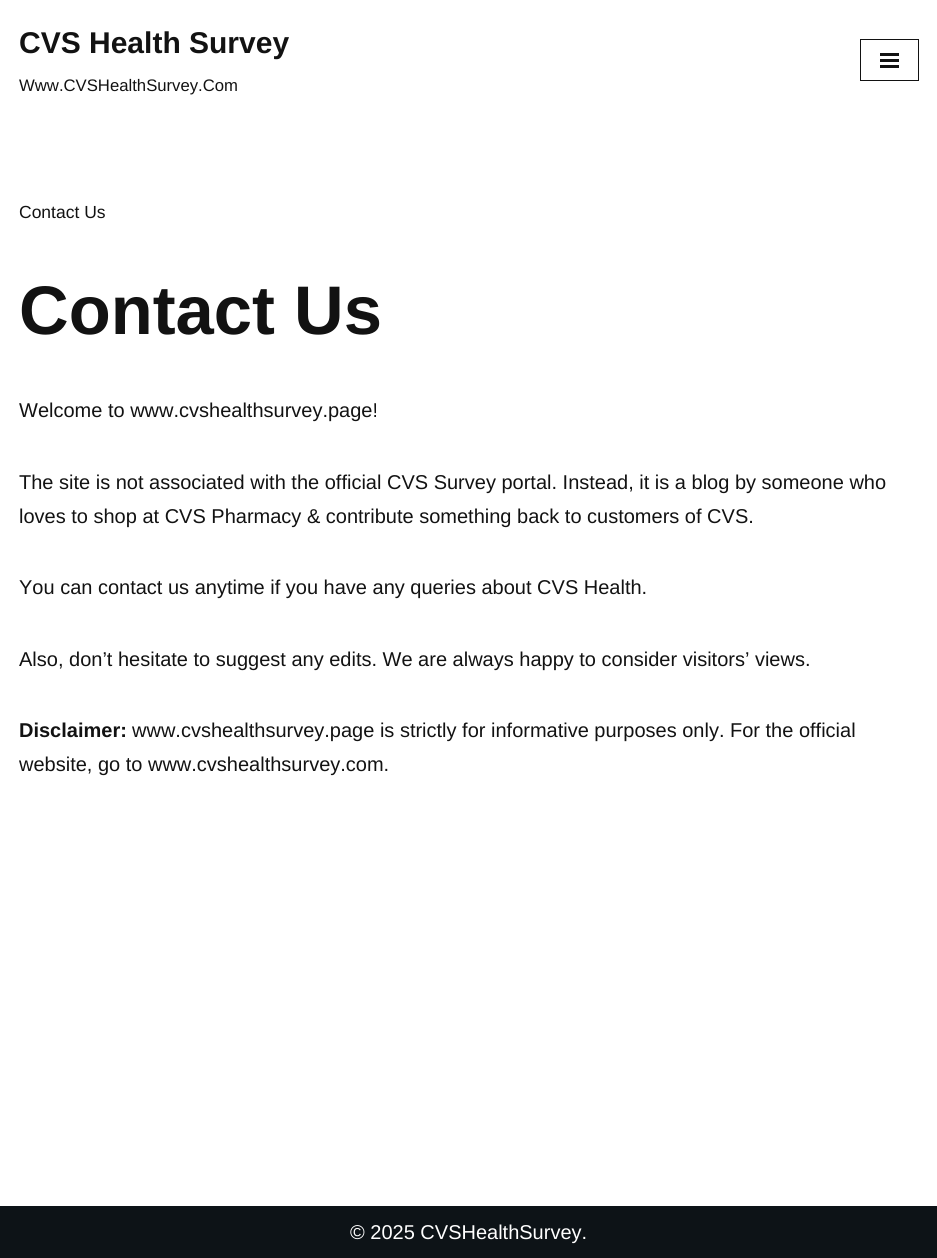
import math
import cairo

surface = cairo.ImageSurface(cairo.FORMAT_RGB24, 937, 1258)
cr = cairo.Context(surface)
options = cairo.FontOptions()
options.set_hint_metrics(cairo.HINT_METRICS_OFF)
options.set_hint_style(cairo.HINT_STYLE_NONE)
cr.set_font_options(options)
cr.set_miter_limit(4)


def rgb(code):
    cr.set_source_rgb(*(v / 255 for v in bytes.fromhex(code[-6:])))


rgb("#ffffff")
cr.paint()
cr.rectangle(860.5, 39.5, 58, 41)
rgb("#121212")
cr.set_line_width(1)
cr.stroke()
for x, y, w, h, color in [
    (880, 53, 19, 3, "#121212"),
    (880, 59, 19, 3, "#121212"),
    (880, 65, 19, 3, "#121212"),
    (0, 1206, 937, 52, "#0d1317"),
]:
    rgb(color)
    cr.rectangle(x, y, w, h)
    cr.fill()
cr.select_font_face("Liberation Sans", cairo.FONT_SLANT_NORMAL, cairo.FONT_WEIGHT_BOLD)
cr.set_font_size(30)
rgb("#121212")
cr.move_to(19, 53)
cr.show_text("CVS Health Survey")
cr.select_font_face("Liberation Sans")
cr.set_font_size(16.7)
cr.move_to(19, 91)
cr.show_text("Www.CVSHealthSurvey.Com")
cr.set_font_size(17.5)
cr.move_to(19, 218)
cr.show_text("Contact Us")
cr.select_font_face("Liberation Sans", cairo.FONT_SLANT_NORMAL, cairo.FONT_WEIGHT_BOLD)
cr.set_font_size(68.75)
cr.move_to(19, 334)
cr.show_text("Contact Us")
cr.select_font_face("Liberation Sans")
cr.set_font_size(20)
for x, y, s in [
    (19, 417, "Welcome to www.cvshealthsurvey.page!"),
    (19, 489, "The site is not associated with the official CVS Survey portal. Instead, it is a blog by someone who"),
    (19, 523, "loves to shop at CVS Pharmacy & contribute something back to customers of CVS."),
    (19, 594, "You can contact us anytime if you have any queries about CVS Health."),
    (19, 666, "Also, don’t hesitate to suggest any edits. We are always happy to consider visitors’ views."),
]:
    cr.move_to(x, y)
    cr.show_text(s)
cr.select_font_face("Liberation Sans", cairo.FONT_SLANT_NORMAL, cairo.FONT_WEIGHT_BOLD)
cr.move_to(19, 737)
cr.show_text("Disclaimer:")
cr.select_font_face("Liberation Sans")
cr.move_to(132, 737)
cr.show_text("www.cvshealthsurvey.page is strictly for informative purposes only. For the official")
cr.move_to(19, 771)
cr.show_text("website, go to www.cvshealthsurvey.com.")
rgb("#ffffff")
cr.move_to(350, 1239)
cr.show_text("© 2025 CVSHealthSurvey.")
surface.write_to_png("page.png")
